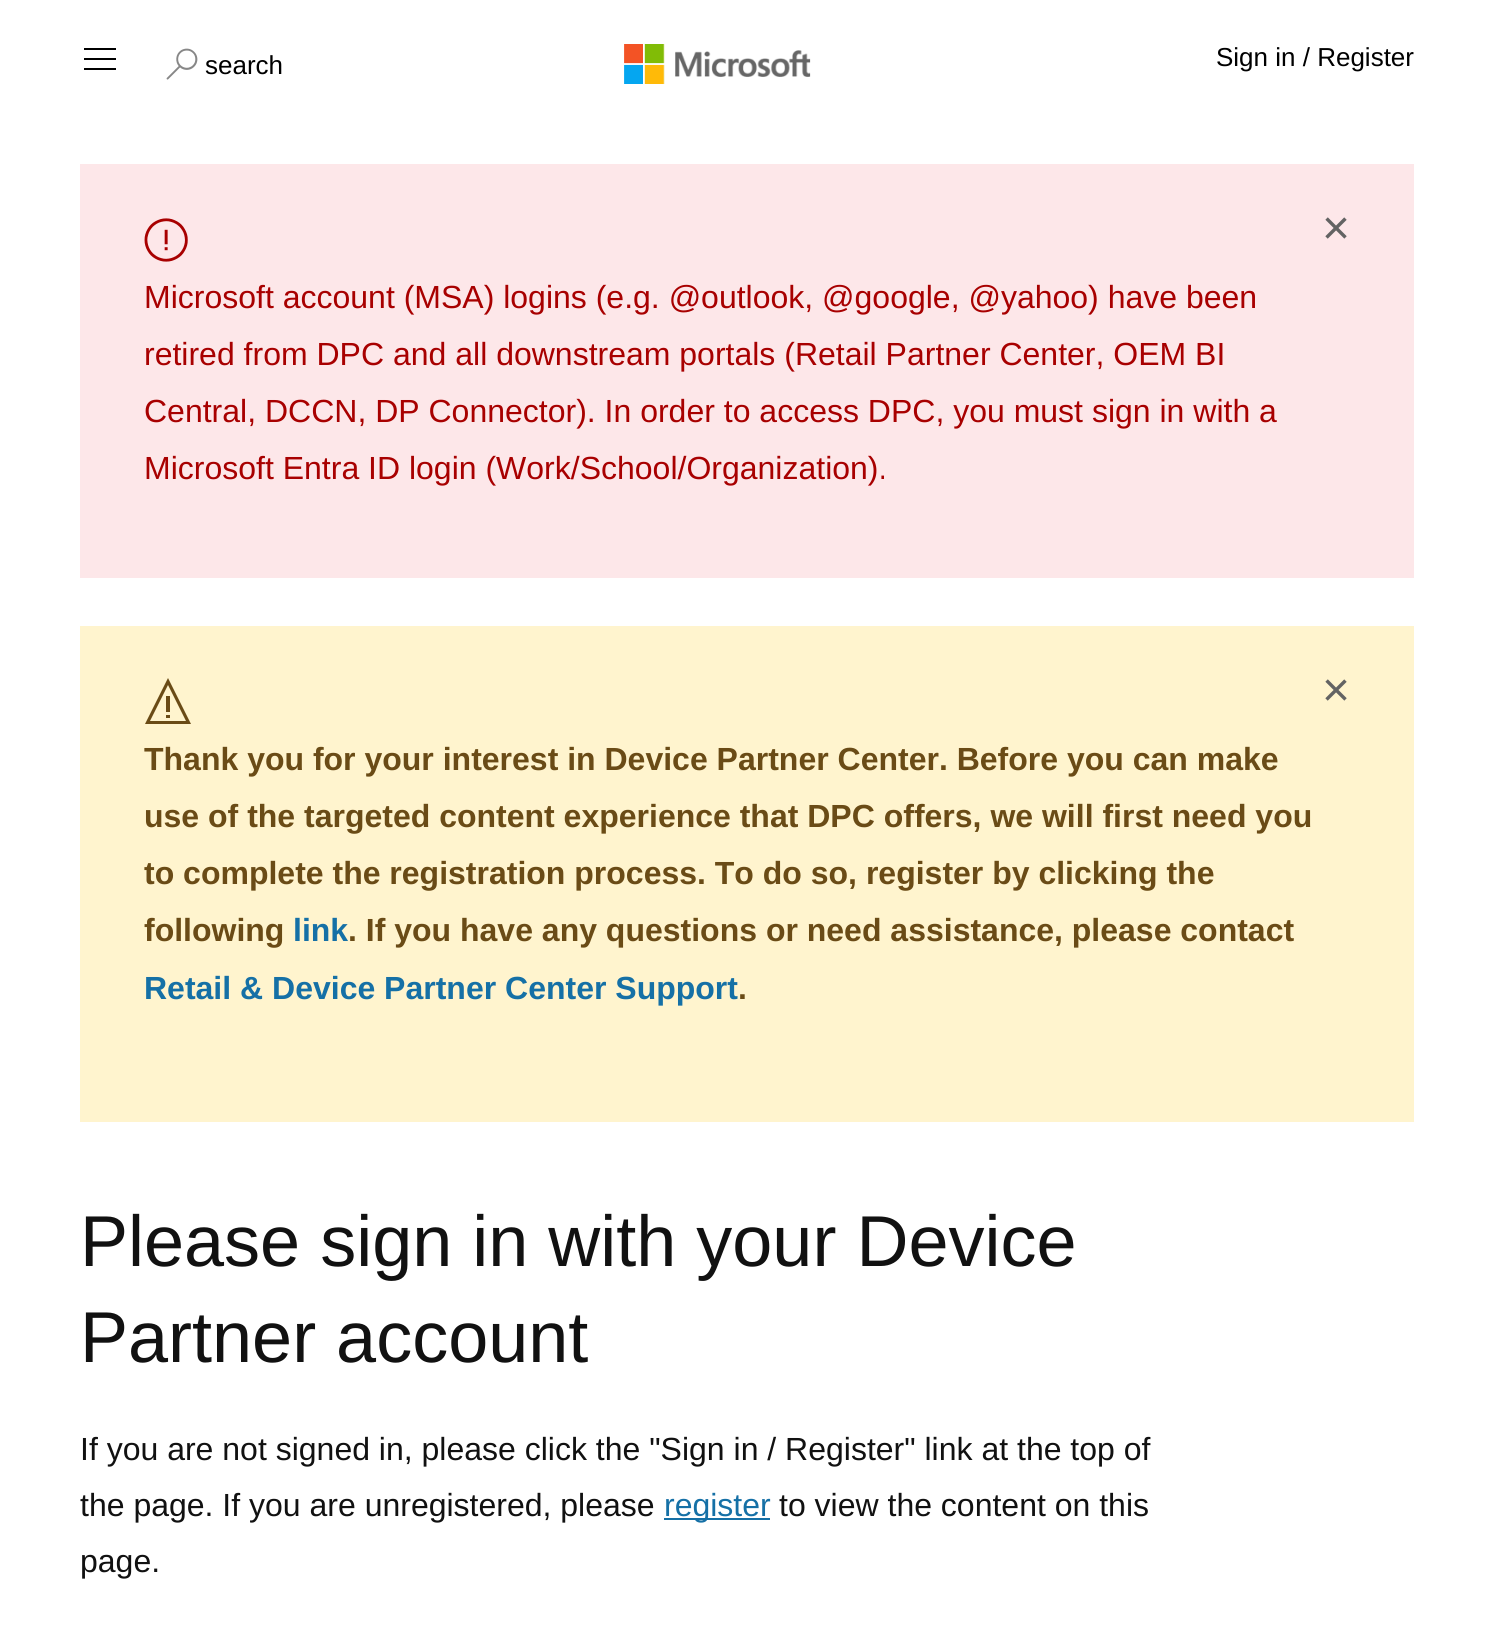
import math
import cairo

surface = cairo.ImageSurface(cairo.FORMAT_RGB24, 1494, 1642)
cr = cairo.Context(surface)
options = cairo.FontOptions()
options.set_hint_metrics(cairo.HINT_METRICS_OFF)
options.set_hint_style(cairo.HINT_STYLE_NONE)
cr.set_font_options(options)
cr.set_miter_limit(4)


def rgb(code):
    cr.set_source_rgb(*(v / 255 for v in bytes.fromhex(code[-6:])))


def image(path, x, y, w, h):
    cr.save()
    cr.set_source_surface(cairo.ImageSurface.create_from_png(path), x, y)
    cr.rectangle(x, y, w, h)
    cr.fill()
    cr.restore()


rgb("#ffffff")
cr.paint()
for x, y, w, h, color in [
    (84, 58, 32, 2, "#000000"),
    (84, 48, 32, 2, "#000000"),
    (84, 68, 32, 2, "#000000"),
]:
    rgb(color)
    cr.rectangle(x, y, w, h)
    cr.fill()
image("img/1.png", 166, 48, 32, 32)
image("img/2.png", 624, 44, 187, 40)
rgb("#fde7e9")
cr.rectangle(80, 164, 1334, 414)
cr.fill()
image("img/3.png", 144, 218, 44, 44)
rgb("#fff4ce")
cr.rectangle(80, 626, 1334, 496)
cr.fill()
rgb("#6a4b16")
cr.new_path()
cr.move_to(168, 678)
cr.line_to(191, 724)
cr.line_to(145, 724)
cr.close_path()
cr.move_to(168, 685)
cr.line_to(150, 721)
cr.line_to(186, 721)
cr.close_path()
cr.move_to(166, 696)
cr.line_to(170, 696)
cr.line_to(170, 712)
cr.line_to(166, 712)
cr.close_path()
cr.move_to(166, 718)
cr.line_to(166, 715)
cr.line_to(170, 715)
cr.line_to(170, 718)
cr.close_path()
cr.fill()
rgb("#1570a6")
cr.rectangle(664, 1518, 106, 2)
cr.fill()
cr.select_font_face("Liberation Sans")
cr.set_font_size(26)
rgb("#000000")
cr.move_to(205, 74)
cr.show_text("search")
cr.move_to(1216, 66)
cr.show_text("Sign in / Register")
cr.set_font_size(48)
rgb("#636363")
cr.move_to(1322, 244)
cr.show_text("×")
cr.set_font_size(32)
rgb("#a80000")
for x, y, s in [
    (144, 308, "Microsoft account (MSA) logins (e.g. @outlook, @google, @yahoo) have been"),
    (144, 365, "retired from DPC and all downstream portals (Retail Partner Center, OEM BI"),
    (144, 422, "Central, DCCN, DP Connector). In order to access DPC, you must sign in with a"),
    (144, 479, "Microsoft Entra ID login (Work/School/Organization)."),
]:
    cr.move_to(x, y)
    cr.show_text(s)
cr.set_font_size(48)
rgb("#636363")
cr.move_to(1322, 706)
cr.show_text("×")
cr.select_font_face("Liberation Sans", cairo.FONT_SLANT_NORMAL, cairo.FONT_WEIGHT_BOLD)
cr.set_font_size(32)
rgb("#6a4b16")
for x, y, s in [
    (144, 770, "Thank you for your interest in Device Partner Center. Before you can make"),
    (144, 827, "use of the targeted content experience that DPC offers, we will first need you"),
    (144, 884, "to complete the registration process. To do so, register by clicking the"),
    (144, 941, "following"),
]:
    cr.move_to(x, y)
    cr.show_text(s)
rgb("#1570a6")
cr.move_to(293, 941)
cr.show_text("link")
rgb("#6a4b16")
cr.move_to(348, 941)
cr.show_text(". If you have any questions or need assistance, please contact")
rgb("#1570a6")
cr.move_to(144, 999)
cr.show_text("Retail & Device Partner Center Support")
rgb("#6a4b16")
cr.move_to(738, 999)
cr.show_text(".")
cr.select_font_face("Liberation Sans")
cr.set_font_size(72)
rgb("#111111")
cr.move_to(80, 1266)
cr.show_text("Please sign in with your Device")
cr.move_to(80, 1362)
cr.show_text("Partner account")
cr.set_font_size(32)
cr.move_to(80, 1460)
cr.show_text("If you are not signed in, please click the \"Sign in / Register\" link at the top of")
cr.move_to(80, 1516)
cr.show_text("the page. If you are unregistered, please")
rgb("#1570a6")
cr.move_to(664, 1516)
cr.show_text("register")
rgb("#111111")
cr.move_to(779, 1516)
cr.show_text("to view the content on this")
cr.move_to(80, 1572)
cr.show_text("page.")
surface.write_to_png("page.png")
